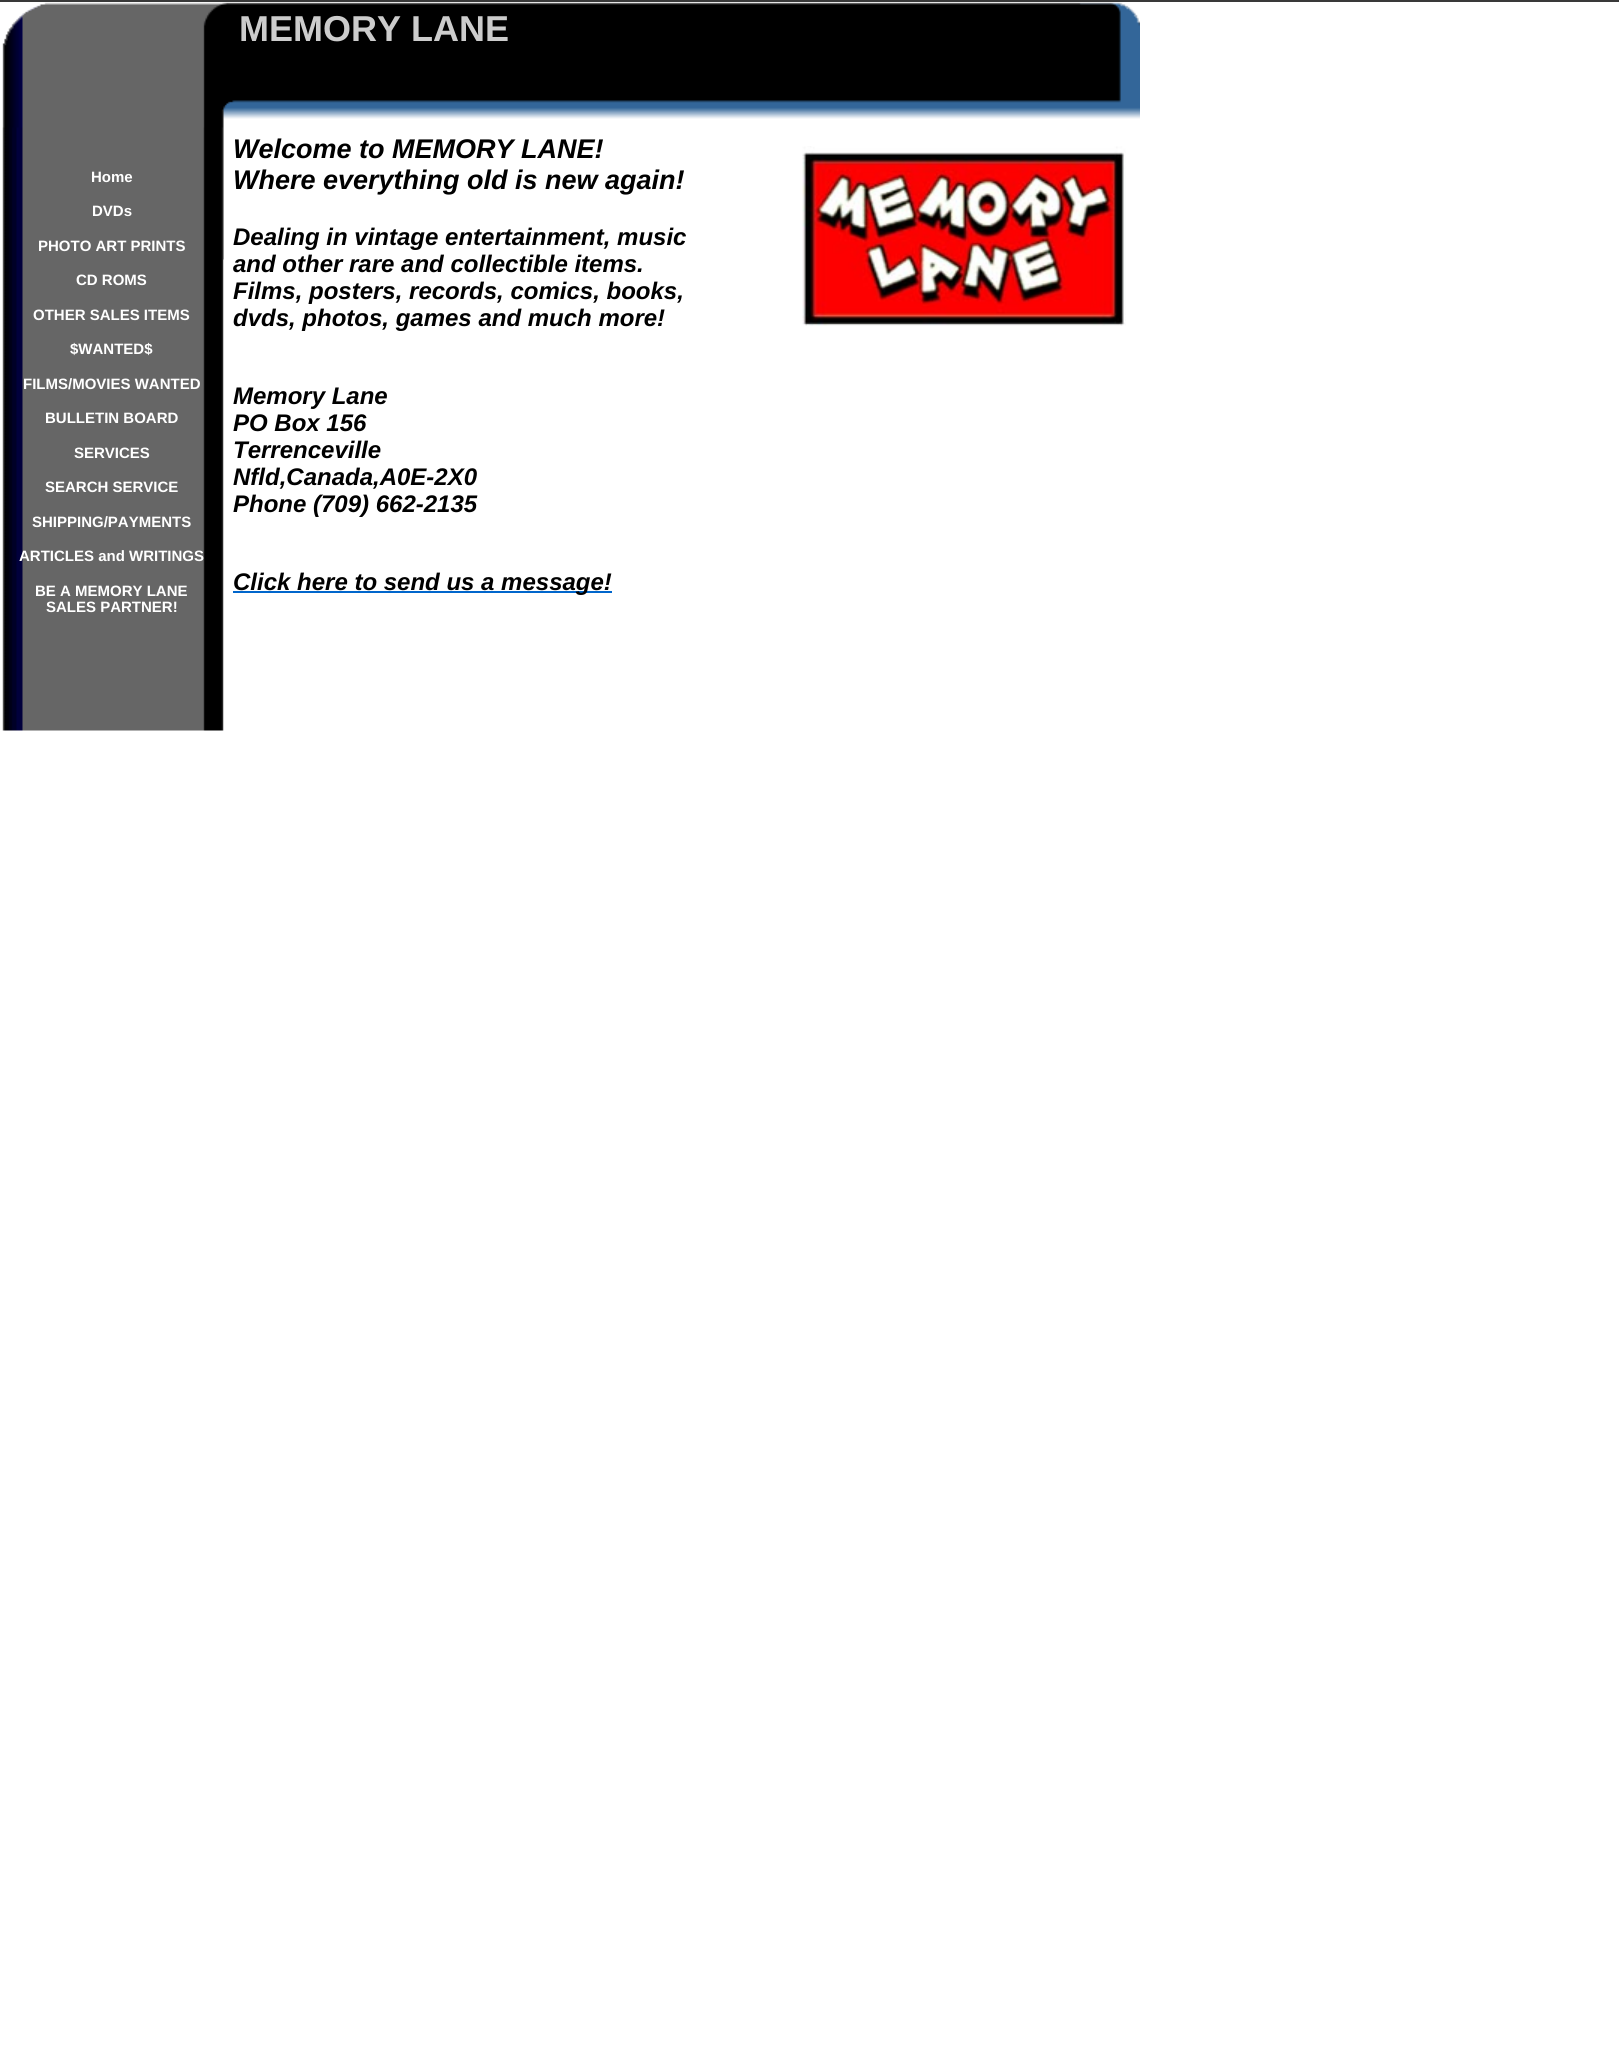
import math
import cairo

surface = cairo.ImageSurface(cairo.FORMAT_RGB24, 1619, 2047)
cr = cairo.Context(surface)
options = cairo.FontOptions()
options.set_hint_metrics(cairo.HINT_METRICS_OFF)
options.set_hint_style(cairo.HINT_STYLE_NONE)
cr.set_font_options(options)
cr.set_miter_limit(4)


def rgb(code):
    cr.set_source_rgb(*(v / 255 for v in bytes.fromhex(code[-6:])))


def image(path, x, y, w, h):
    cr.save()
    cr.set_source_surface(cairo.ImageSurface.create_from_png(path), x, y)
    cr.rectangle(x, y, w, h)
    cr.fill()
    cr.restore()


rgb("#ffffff")
cr.paint()
image("img/1.png", 2, 2, 1138, 258)
rgb("#393939")
cr.rectangle(0, 0, 1619, 2)
cr.fill()
image("img/2.png", 2, 127, 222, 604)
image("img/3.png", 802, 146, 324, 180)
rgb("#0066cc")
cr.rectangle(233, 591, 379, 2)
cr.fill()
cr.select_font_face("Liberation Sans", cairo.FONT_SLANT_NORMAL, cairo.FONT_WEIGHT_BOLD)
cr.set_font_size(36)
rgb("#cccccc")
cr.move_to(239, 41)
cr.show_text("MEMORY LANE")
cr.set_font_size(15)
rgb("#ffffff")
for x, y, s in [
    (91, 182, "Home"),
    (92, 216, "DVDs"),
    (38, 251, "PHOTO ART PRINTS"),
    (76, 285, "CD ROMS"),
    (33, 320, "OTHER SALES ITEMS"),
    (70, 354, "$WANTED$"),
    (23, 389, "FILMS/MOVIES WANTED"),
    (45, 423, "BULLETIN BOARD"),
    (74, 458, "SERVICES"),
    (45, 492, "SEARCH SERVICE"),
    (32, 527, "SHIPPING/PAYMENTS"),
    (19, 561, "ARTICLES and WRITINGS"),
    (35, 596, "BE A MEMORY LANE"),
    (46, 612, "SALES PARTNER!"),
]:
    cr.move_to(x, y)
    cr.show_text(s)
cr.select_font_face("Liberation Sans", cairo.FONT_SLANT_ITALIC, cairo.FONT_WEIGHT_BOLD)
cr.set_font_size(27)
rgb("#000000")
cr.move_to(233, 158)
cr.show_text("Welcome to MEMORY LANE!")
cr.move_to(233, 189)
cr.show_text("Where everything old is new again!")
cr.set_font_size(24)
for x, y, s in [
    (233, 245, "Dealing in vintage entertainment, music"),
    (233, 272, "and other rare and collectible items."),
    (233, 299, "Films, posters, records, comics, books,"),
    (233, 326, "dvds, photos, games and much more!"),
    (233, 404, "Memory Lane"),
    (233, 431, "PO Box 156"),
    (233, 458, "Terrenceville"),
    (233, 485, "Nfld,Canada,A0E-2X0"),
    (233, 512, "Phone (709) 662-2135"),
    (233, 590, "Click here to send us a message!"),
]:
    cr.move_to(x, y)
    cr.show_text(s)
surface.write_to_png("page.png")
